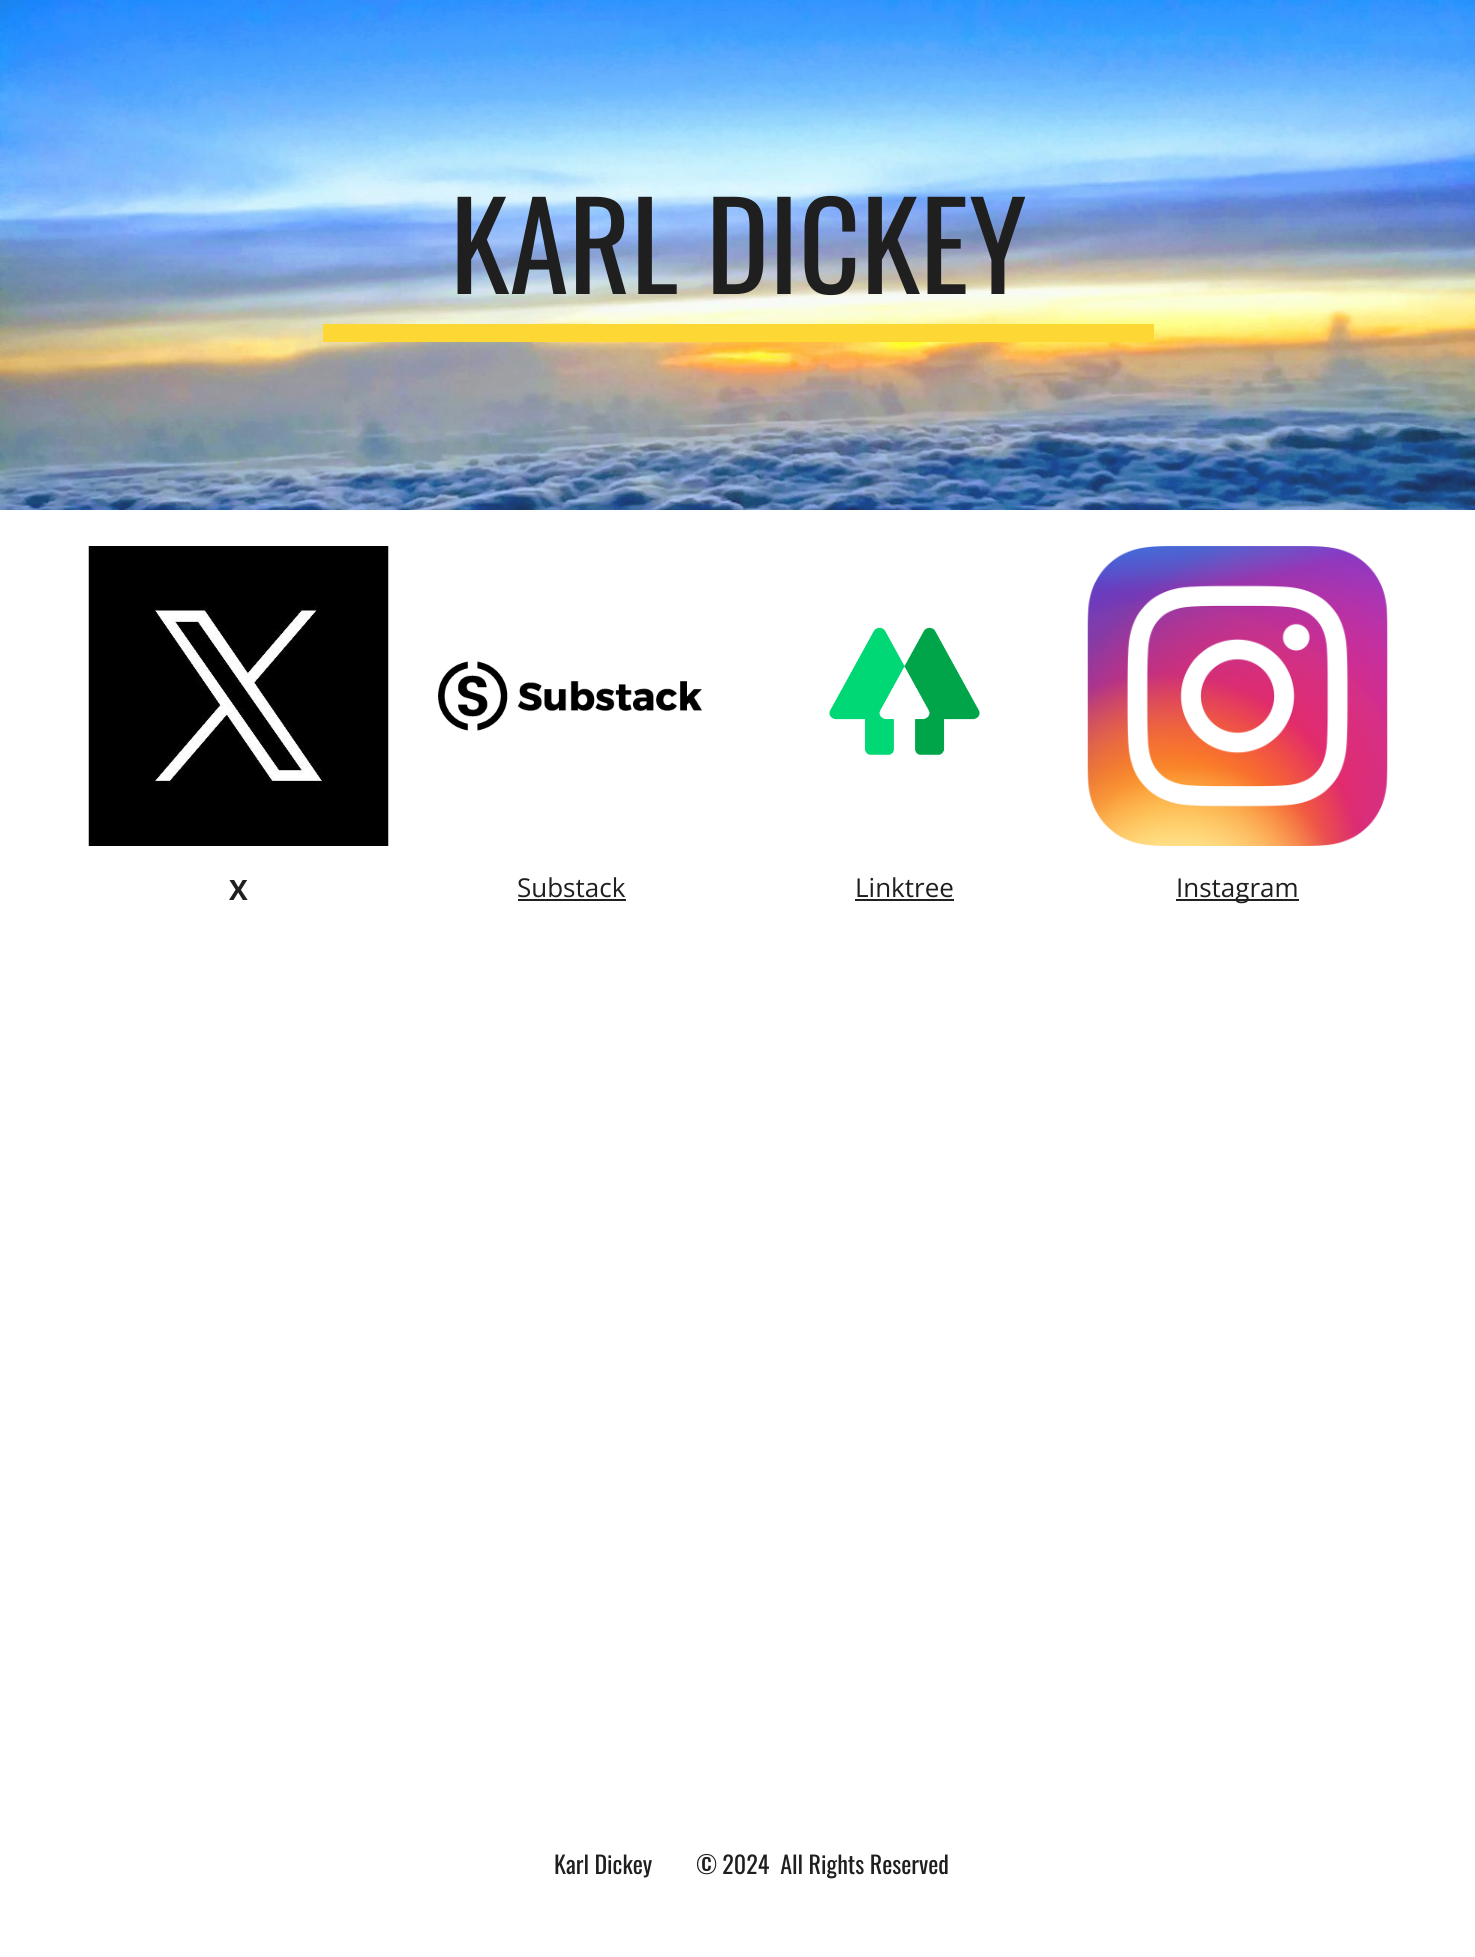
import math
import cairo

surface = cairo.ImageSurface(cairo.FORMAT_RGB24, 1475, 1957)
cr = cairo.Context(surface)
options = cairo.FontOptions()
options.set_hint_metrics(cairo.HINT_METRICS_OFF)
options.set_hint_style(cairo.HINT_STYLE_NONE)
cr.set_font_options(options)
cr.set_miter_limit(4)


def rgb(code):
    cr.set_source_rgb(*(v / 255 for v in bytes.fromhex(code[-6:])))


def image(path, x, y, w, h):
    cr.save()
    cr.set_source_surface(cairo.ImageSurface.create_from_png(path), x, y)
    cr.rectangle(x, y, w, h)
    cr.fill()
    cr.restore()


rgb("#ffffff")
cr.paint()
image("img/1.png", 0, 0, 1475, 510)
rgb("#fdd835")
cr.rectangle(323, 324, 831, 18)
cr.fill()
image("img/2.png", 88, 546, 301, 300)
image("img/3.png", 438, 661, 264, 70)
rgb("#212121")
cr.rectangle(518, 899, 108, 2)
cr.fill()
image("img/4.png", 829, 627, 151, 128)
cr.rectangle(855, 899, 99, 2)
cr.fill()
image("img/5.png", 1087, 546, 301, 300)
cr.rectangle(1176, 899, 123, 2)
cr.fill()
cr.select_font_face("Oswald")
cr.set_font_size(120)
rgb("#1f1f1f")
cr.move_to(450, 294)
cr.show_text("KARL DICKEY")
cr.select_font_face("Open Sans", cairo.FONT_SLANT_NORMAL, cairo.FONT_WEIGHT_BOLD)
cr.set_font_size(28)
cr.move_to(229, 900)
cr.show_text("X")
cr.select_font_face("Open Sans")
cr.set_font_size(26)
for x, y, s in [
    (517, 897, "Substack"),
    (855, 897, "Linktree"),
    (1176, 897, "Instagram"),
]:
    cr.move_to(x, y)
    cr.show_text(s)
cr.select_font_face("Oswald")
cr.set_font_size(24)
cr.move_to(554, 1874)
cr.show_text("Karl Dickey        © 2024  All Rights Reserved")
surface.write_to_png("page.png")
